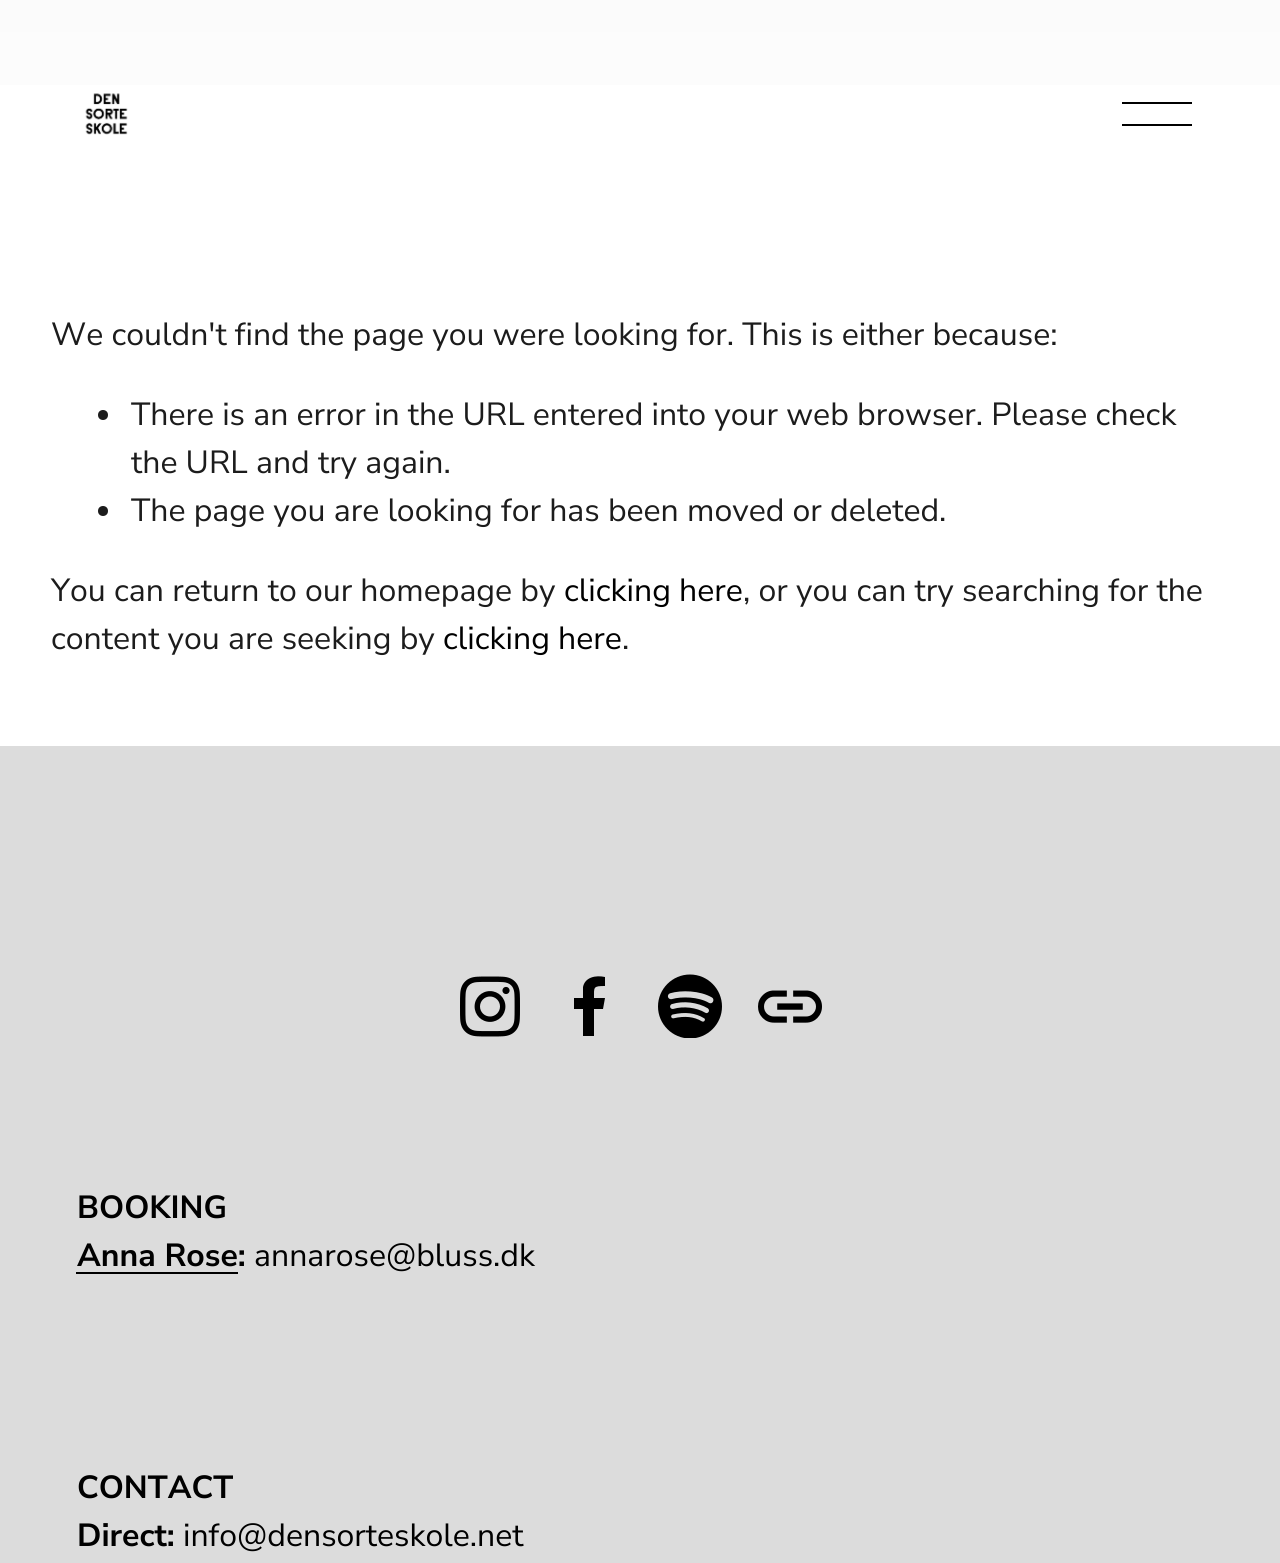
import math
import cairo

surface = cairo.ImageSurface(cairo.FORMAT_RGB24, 1280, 1563)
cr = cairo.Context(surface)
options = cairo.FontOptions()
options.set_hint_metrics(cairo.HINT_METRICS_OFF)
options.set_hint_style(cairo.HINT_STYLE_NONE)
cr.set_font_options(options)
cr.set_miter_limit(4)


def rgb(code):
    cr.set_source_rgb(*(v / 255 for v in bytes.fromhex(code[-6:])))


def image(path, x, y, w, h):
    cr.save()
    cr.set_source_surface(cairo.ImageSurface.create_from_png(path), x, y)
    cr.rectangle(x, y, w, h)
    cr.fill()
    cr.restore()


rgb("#ffffff")
cr.paint()
gradient = cairo.LinearGradient(640, 0, 640, 228)
gradient.add_color_stop_rgba(0, 0.984, 0.984, 0.984, 1)
gradient.add_color_stop_rgba(1, 1, 1, 1, 1)
cr.set_source(gradient)
cr.rectangle(0, 0, 1280, 85)
cr.fill()
image("img/1.png", 85, 93, 43, 42)
rgb("#000000")
cr.rectangle(1122, 102, 70, 2)
cr.fill()
cr.rectangle(1122, 124, 70, 2)
cr.fill()
rgb("#1c1c1c")
cr.arc(103, 415, 5, 0, 2 * math.pi)
cr.fill()
cr.arc(103, 511, 5, 0, 2 * math.pi)
cr.fill()
rgb("#dcdcdc")
cr.rectangle(0, 746, 1280, 817)
cr.fill()
image("img/2.png", 460, 976, 60, 61)
rgb("#000000")
cr.new_path()
cr.move_to(594, 1036)
cr.line_to(594, 1009)
cr.line_to(603, 1009)
cr.line_to(605, 998)
cr.line_to(594, 998)
cr.curve_to(594, 987, 593, 986, 605, 986)
cr.line_to(605, 977)
cr.curve_to(596, 975, 585, 977, 583, 987)
cr.line_to(583, 998)
cr.line_to(574, 998)
cr.line_to(574, 1009)
cr.line_to(583, 1009)
cr.line_to(583, 1036)
cr.close_path()
cr.fill()
image("img/3.png", 658, 974, 64, 64)
image("img/4.png", 758, 990, 64, 33)
cr.rectangle(76, 1272, 162, 2)
cr.fill()
cr.select_font_face("Nunito Sans")
cr.set_font_size(32)
rgb("#1c1c1c")
for x, y, s in [
    (51, 345, "We couldn't find the page you were looking for. This is either because:"),
    (131, 425, "There is an error in the URL entered into your web browser. Please check"),
    (131, 473, "the URL and try again."),
    (131, 521, "The page you are looking for has been moved or deleted."),
    (51, 601, "You can return to our homepage by"),
]:
    cr.move_to(x, y)
    cr.show_text(s)
rgb("#000000")
cr.move_to(564, 601)
cr.show_text("clicking here")
rgb("#1c1c1c")
cr.move_to(743, 601)
cr.show_text(", or you can try searching for the")
cr.move_to(51, 649)
cr.show_text("content you are seeking by")
rgb("#000000")
cr.move_to(443, 649)
cr.show_text("clicking here")
rgb("#1c1c1c")
cr.move_to(622, 649)
cr.show_text(".")
cr.select_font_face("Nunito Sans", cairo.FONT_SLANT_NORMAL, cairo.FONT_WEIGHT_BOLD)
rgb("#000000")
cr.move_to(77, 1218)
cr.show_text("BOOKING")
cr.move_to(77, 1266)
cr.show_text("Anna Rose:")
cr.select_font_face("Nunito Sans")
cr.move_to(254, 1266)
cr.show_text("annarose@bluss.dk")
cr.select_font_face("Nunito Sans", cairo.FONT_SLANT_NORMAL, cairo.FONT_WEIGHT_BOLD)
cr.move_to(77, 1498)
cr.show_text("CONTACT")
cr.move_to(77, 1546)
cr.show_text("Direct:")
cr.select_font_face("Nunito Sans")
cr.move_to(183, 1546)
cr.show_text("info@densorteskole.net")
surface.write_to_png("page.png")
